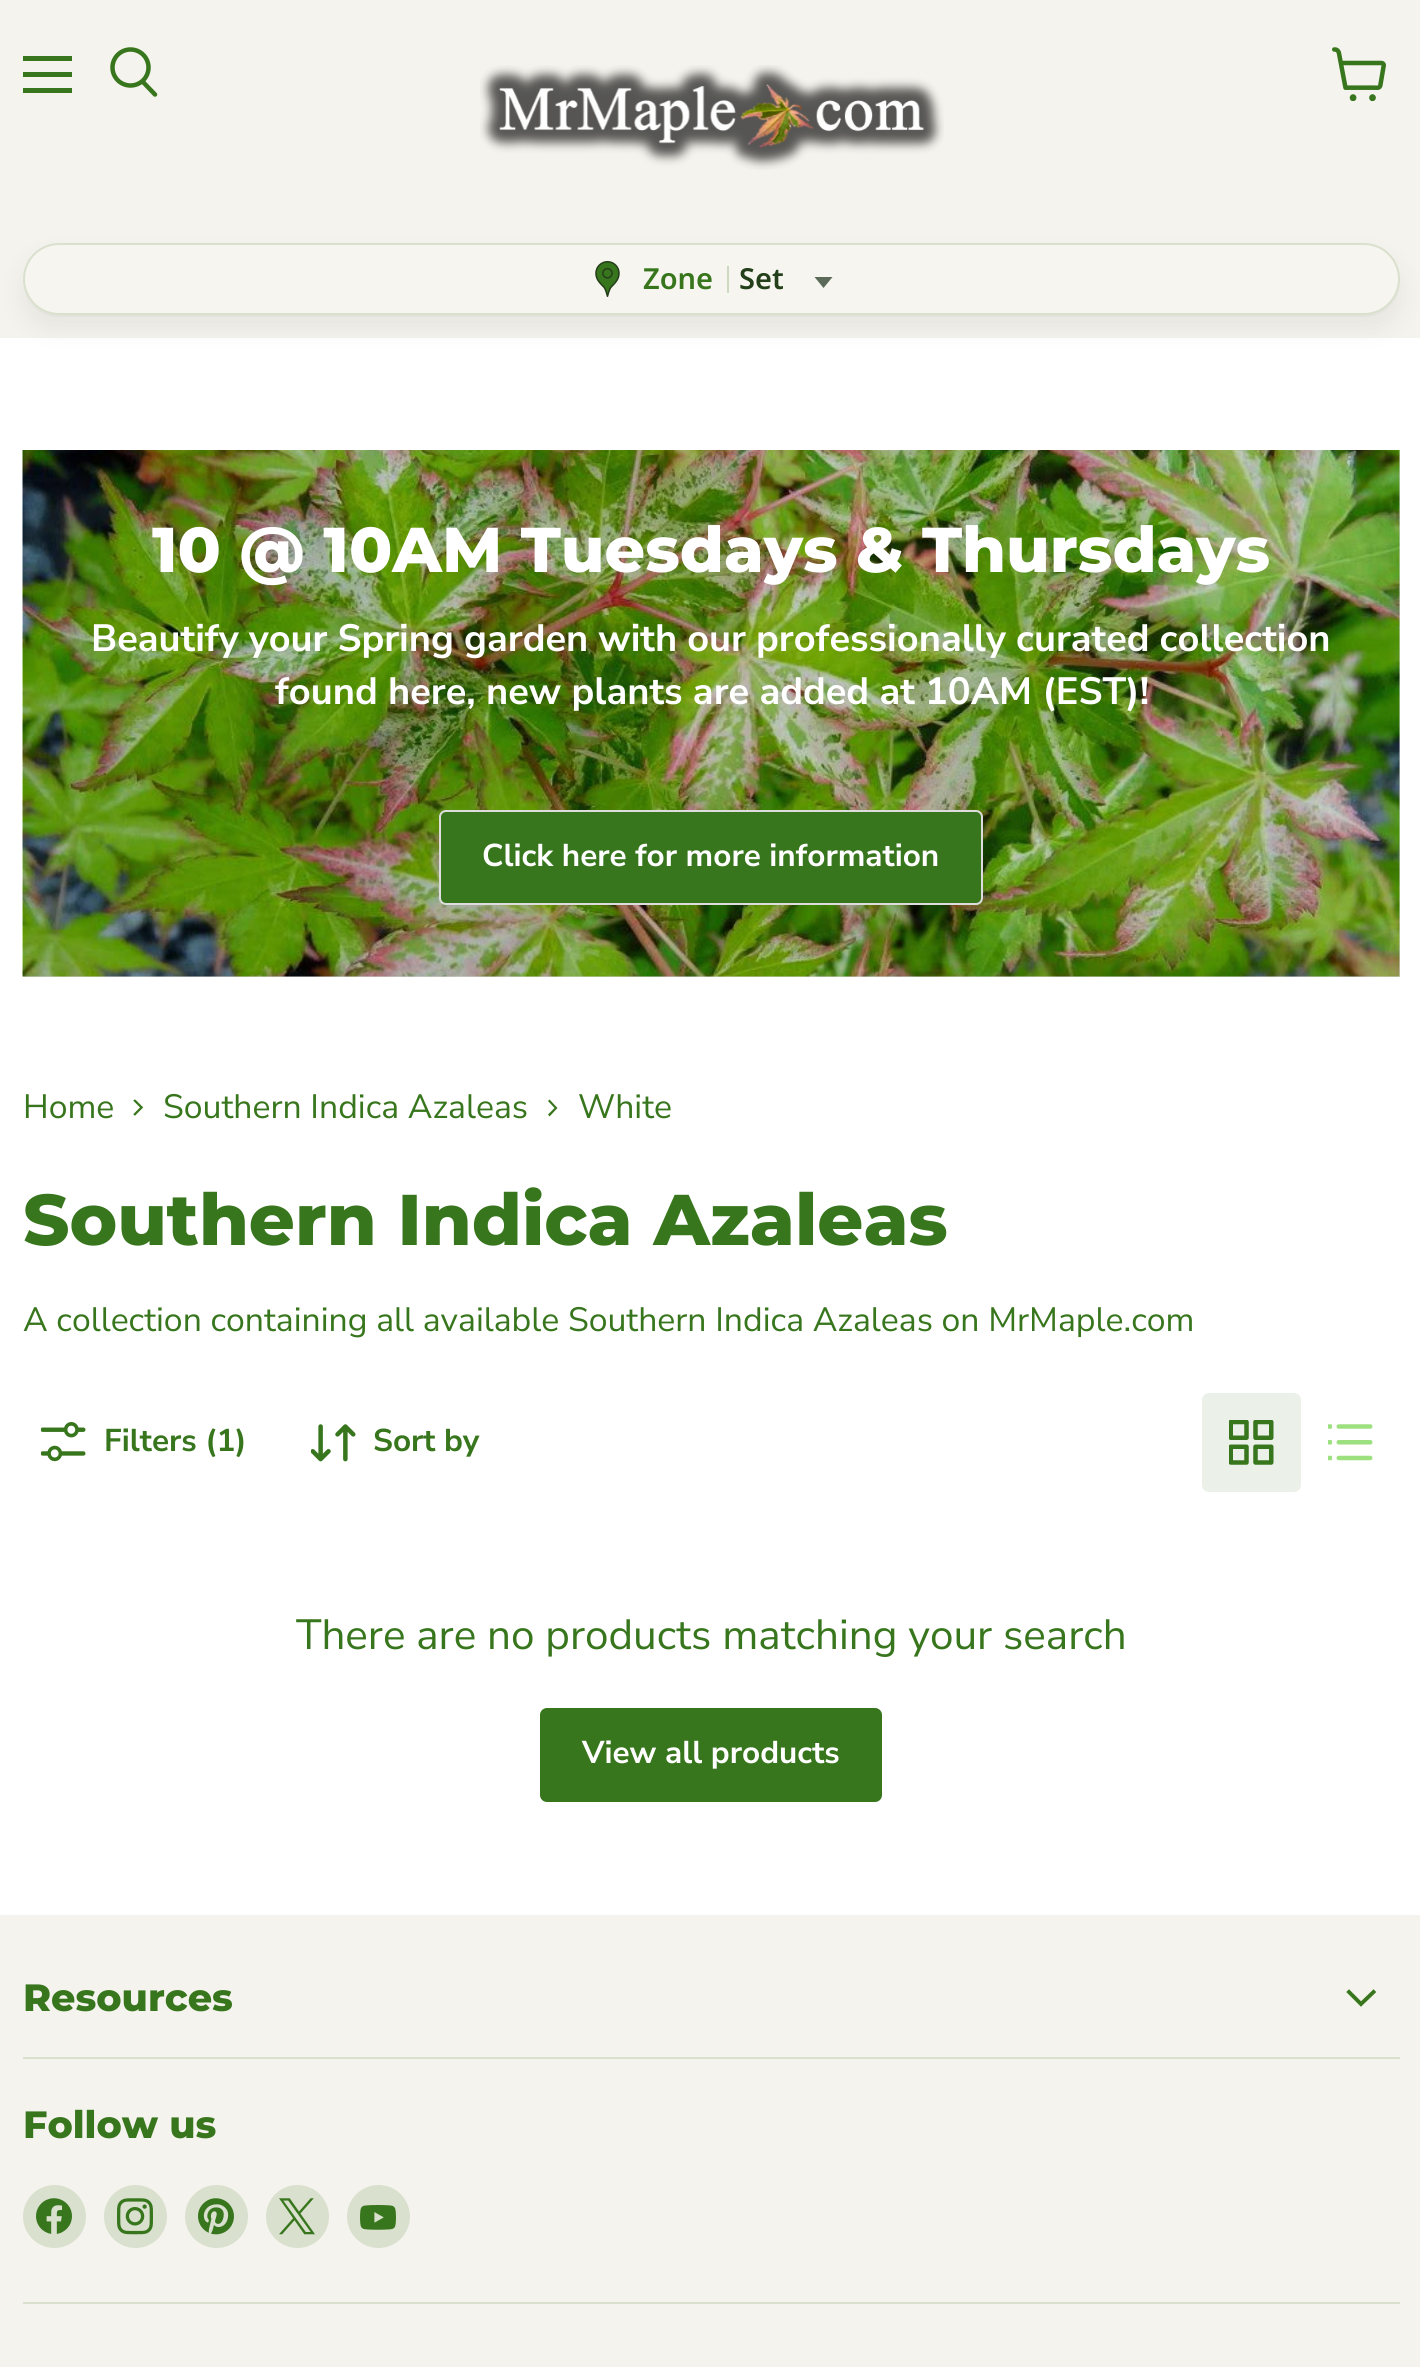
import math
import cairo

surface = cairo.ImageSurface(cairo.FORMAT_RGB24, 1420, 2367)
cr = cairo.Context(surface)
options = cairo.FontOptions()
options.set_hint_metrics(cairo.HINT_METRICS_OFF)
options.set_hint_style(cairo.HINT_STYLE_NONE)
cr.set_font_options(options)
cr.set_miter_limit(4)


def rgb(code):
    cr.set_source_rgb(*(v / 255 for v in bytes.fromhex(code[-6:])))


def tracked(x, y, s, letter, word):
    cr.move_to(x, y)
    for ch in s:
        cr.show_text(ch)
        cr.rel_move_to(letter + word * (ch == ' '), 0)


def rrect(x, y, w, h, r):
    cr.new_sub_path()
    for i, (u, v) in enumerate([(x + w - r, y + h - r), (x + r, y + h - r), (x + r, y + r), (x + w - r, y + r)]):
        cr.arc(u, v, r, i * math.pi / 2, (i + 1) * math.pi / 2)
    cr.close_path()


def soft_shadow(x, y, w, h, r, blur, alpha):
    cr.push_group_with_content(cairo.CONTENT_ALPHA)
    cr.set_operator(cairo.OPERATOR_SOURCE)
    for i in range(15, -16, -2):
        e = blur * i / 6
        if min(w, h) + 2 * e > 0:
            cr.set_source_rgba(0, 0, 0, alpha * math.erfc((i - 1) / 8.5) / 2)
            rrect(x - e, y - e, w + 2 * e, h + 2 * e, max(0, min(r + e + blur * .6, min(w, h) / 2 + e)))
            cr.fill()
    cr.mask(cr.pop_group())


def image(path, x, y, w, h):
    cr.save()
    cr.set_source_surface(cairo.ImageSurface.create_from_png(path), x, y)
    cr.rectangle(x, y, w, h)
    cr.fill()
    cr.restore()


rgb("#ffffff")
cr.paint()
for x, y, w, h, color in [
    (23, 450, 1377, 527, "#d9d9d9"),
    (0, 0, 1420, 338, "#f5f3ed"),
    (23, 56, 49, 5, "#38761d"),
    (23, 72, 49, 5, "#38761d"),
    (23, 88, 49, 5, "#38761d"),
]:
    rgb(color)
    cr.rectangle(x, y, w, h)
    cr.fill()
cr.new_path()
cr.move_to(155, 94.5)
cr.line_to(143, 82)
cr.set_line_width(4.5)
cr.set_line_cap(cairo.LINE_CAP_ROUND)
cr.stroke()
cr.arc(130.5, 67.5, 18, 0, 2 * math.pi)
cr.set_line_cap(cairo.LINE_CAP_BUTT)
cr.stroke()
image("img/1.png", 1332, 47, 54, 54)
image("img/2.png", 480, 65, 464, 105)
rgb("#000000")
soft_shadow(23, 257, 1377, 72, 36, 13.5, 0.06)
cr.set_source_rgba(0, 0, 0, 0.03)
cr.new_path()
cr.move_to(24, 289)
cr.curve_to(27, 305, 42, 317, 59, 317)
cr.line_to(1364, 317)
cr.curve_to(1384, 317, 1400, 301, 1400, 281)
cr.curve_to(1400, 278, 1400, 274, 1399, 271)
cr.line_to(1400, 279)
cr.curve_to(1400, 299, 1383, 315, 1364, 315)
cr.line_to(58, 315)
cr.curve_to(42, 315, 28, 304, 24, 289)
cr.close_path()
cr.fill()
rgb("#f7f5ef")
rrect(23, 243, 1377, 72, 36)
cr.fill()
rrect(24, 244, 1375, 70, 35)
cr.set_source_rgba(0.22, 0.463, 0.114, 0.16)
cr.set_line_width(2)
cr.stroke()
image("img/3.png", 595, 261, 25, 36)
rgb("#cdd9c1")
cr.rectangle(727, 266, 2, 27)
cr.fill()
rgb("#5c6a59")
cr.new_path()
cr.move_to(814.5, 277)
cr.line_to(832.5, 277)
cr.line_to(823.5, 288)
cr.close_path()
cr.fill()
image("img/4.png", 22, 450, 1378, 527)
rgb("#38761d")
rrect(440, 811, 542, 93, 6)
cr.fill_preserve()
rgb("#dddddd")
cr.stroke()
image("img/5.png", 133, 1099, 11, 17)
rgb("#38761d")
cr.set_fill_rule(cairo.FILL_RULE_EVEN_ODD)
cr.new_path()
cr.move_to(548, 1114.5)
cr.line_to(549.5, 1116.5)
cr.line_to(557.5, 1108)
cr.line_to(549.5, 1099.5)
cr.line_to(548, 1101)
cr.line_to(554.5, 1108)
cr.close_path()
cr.fill()
image("img/6.png", 41, 1422, 45, 40)
image("img/7.png", 311, 1424, 45, 38)
rgb("#ebf1e8")
rrect(1202, 1393, 99, 99, 7)
cr.fill()
image("img/8.png", 1229, 1420, 45, 45)
image("img/9.png", 1328, 1424, 45, 37)
rgb("#38761d")
rrect(541, 1709, 340, 92, 6)
cr.fill_preserve()
cr.stroke()
rgb("#f5f3ed")
cr.rectangle(0, 1915, 1420, 452)
cr.fill()
rgb("#d9e0ce")
cr.rectangle(23, 2057, 1377, 2)
cr.fill()
cr.new_path()
cr.move_to(1361, 2004)
cr.line_to(1373.5, 1992)
cr.move_to(1361, 2004)
cr.line_to(1349, 1992)
rgb("#38761d")
cr.set_line_width(3.9)
cr.set_line_cap(cairo.LINE_CAP_SQUARE)
cr.stroke()
rgb("#d9e0ce")
cr.rectangle(23, 2302, 1377, 2)
cr.fill()
cr.arc(54.5, 2216.5, 31.5, 0, 2 * math.pi)
cr.fill()
image("img/10.png", 36, 2198, 36, 36)
cr.arc(135.5, 2216.5, 31.5, 0, 2 * math.pi)
cr.fill()
image("img/11.png", 117, 2198, 36, 37)
cr.arc(216.5, 2216.5, 31.5, 0, 2 * math.pi)
cr.fill()
image("img/12.png", 198, 2198, 36, 37)
cr.arc(297.5, 2216.5, 31.5, 0, 2 * math.pi)
cr.fill()
image("img/13.png", 279, 2198, 36, 37)
cr.arc(378.5, 2216.5, 31.5, 0, 2 * math.pi)
cr.fill()
image("img/14.png", 360, 2205, 36, 25)
cr.select_font_face("Noto Sans SemiBold")
cr.set_font_size(29)
rgb("#38761d")
cr.move_to(643, 289)
cr.show_text("Zone")
rgb("#24401a")
cr.move_to(739, 289)
cr.show_text("Set")
cr.select_font_face("Montserrat ExtraBold")
cr.set_font_size(63.25)
rgb("#ffffff")
cr.move_to(152, 572)
cr.show_text("10 @ 10AM Tuesdays & Thursdays")
cr.select_font_face("Nunito Sans", cairo.FONT_SLANT_NORMAL, cairo.FONT_WEIGHT_BOLD)
cr.set_font_size(38)
tracked(91, 651, "Beautify your Spring garden with our professionally curated collection", 0, -0.25)
cr.move_to(275, 704)
cr.show_text("found here, new plants are added at 10AM (EST)!")
cr.set_font_size(31.5)
cr.move_to(482, 866)
cr.show_text("Click here for more information")
cr.select_font_face("Nunito Sans")
cr.set_font_size(33.75)
rgb("#38761d")
for x, y, s in [
    (23, 1118, "Home"),
    (163, 1118, "Southern Indica Azaleas"),
    (578, 1118, "White"),
]:
    cr.move_to(x, y)
    cr.show_text(s)
cr.select_font_face("Montserrat ExtraBold")
cr.set_font_size(71.75)
cr.move_to(23, 1245)
cr.show_text("Southern Indica Azaleas")
cr.select_font_face("Nunito Sans")
cr.set_font_size(33.75)
cr.move_to(23, 1331)
cr.show_text("A collection containing all available Southern Indica Azaleas on MrMaple.com")
cr.select_font_face("Nunito Sans", cairo.FONT_SLANT_NORMAL, cairo.FONT_WEIGHT_BOLD)
cr.set_font_size(31.5)
cr.move_to(104, 1451)
cr.show_text("Filters (1)")
cr.move_to(373, 1451)
cr.show_text("Sort by")
cr.select_font_face("Nunito Sans")
cr.set_font_size(42.2)
cr.move_to(296, 1649)
cr.show_text("There are no products matching your search")
cr.select_font_face("Nunito Sans", cairo.FONT_SLANT_NORMAL, cairo.FONT_WEIGHT_BOLD)
cr.set_font_size(31.5)
rgb("#ffffff")
cr.move_to(582, 1763)
cr.show_text("View all products")
cr.select_font_face("Montserrat ExtraBold")
cr.set_font_size(38)
rgb("#38761d")
cr.move_to(23, 2011)
cr.show_text("Resources")
cr.move_to(23, 2138)
cr.show_text("Follow us")
surface.write_to_png("page.png")
